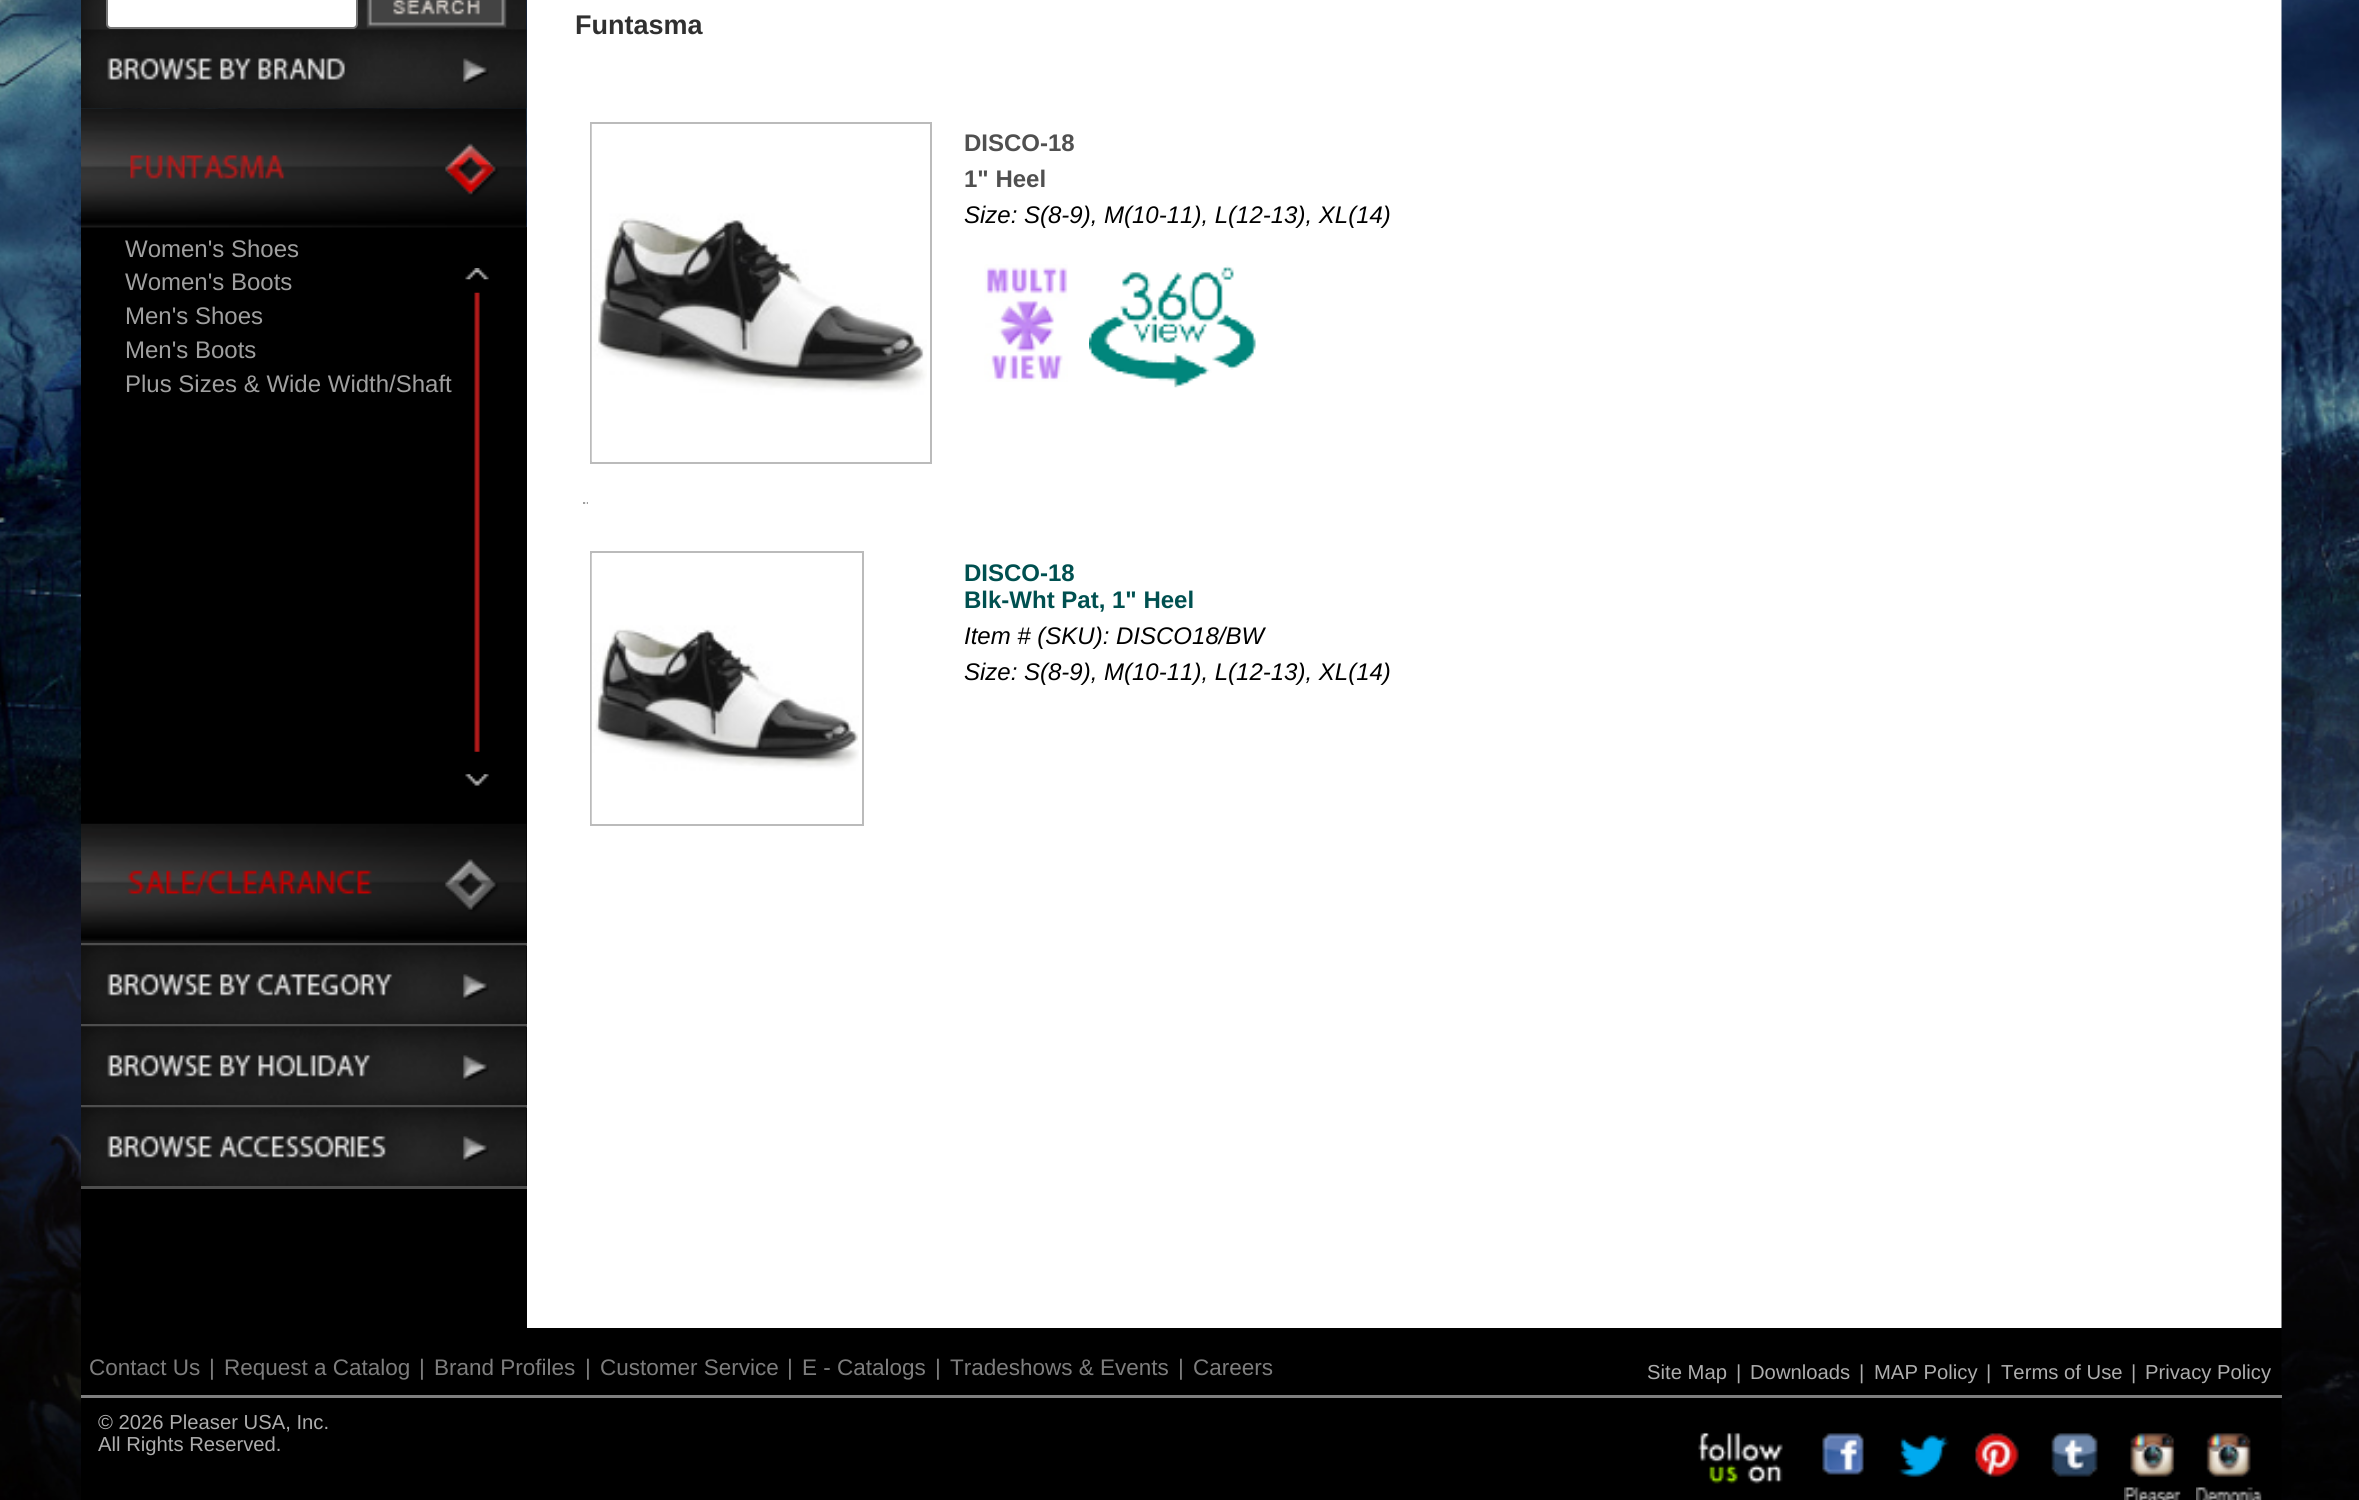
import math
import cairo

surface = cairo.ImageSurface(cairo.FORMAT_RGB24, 2359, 1500)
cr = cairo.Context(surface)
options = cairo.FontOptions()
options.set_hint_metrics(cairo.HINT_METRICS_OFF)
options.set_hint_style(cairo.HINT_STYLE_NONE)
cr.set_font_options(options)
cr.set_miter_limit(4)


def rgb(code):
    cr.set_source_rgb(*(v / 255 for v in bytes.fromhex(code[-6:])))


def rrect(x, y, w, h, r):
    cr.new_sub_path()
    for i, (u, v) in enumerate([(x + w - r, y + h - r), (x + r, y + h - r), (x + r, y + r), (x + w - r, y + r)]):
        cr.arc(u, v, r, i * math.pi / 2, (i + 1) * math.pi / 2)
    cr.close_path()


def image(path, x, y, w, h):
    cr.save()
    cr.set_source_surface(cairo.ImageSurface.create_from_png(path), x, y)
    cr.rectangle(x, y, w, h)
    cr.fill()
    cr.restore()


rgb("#000000")
cr.paint()
image("img/1.png", 0, 0, 81, 1500)
image("img/2.png", 81, 0, 446, 227)
image("img/3.png", 81, 0, 446, 109)
rgb("#ffffff")
rrect(107, -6, 250, 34, 4)
cr.fill_preserve()
rgb("#767676")
cr.stroke()
image("img/4.png", 366, 0, 141, 29)
image("img/5.png", 81, 29, 446, 80)
image("img/6.png", 81, 108, 446, 120)
image("img/7.png", 465, 268, 24, 12)
image("img/8.png", 474, 292, 6, 460)
image("img/9.png", 465, 774, 24, 12)
image("img/10.png", 81, 823, 446, 120)
rgb("#4e4e4e")
cr.rectangle(81, 943, 446, 3)
cr.fill()
image("img/11.png", 81, 945, 446, 79)
cr.rectangle(81, 1024, 446, 3)
cr.fill()
image("img/12.png", 81, 1026, 446, 79)
cr.rectangle(81, 1105, 446, 3)
cr.fill()
image("img/13.png", 81, 1107, 446, 79)
cr.rectangle(81, 1186, 446, 3)
cr.fill()
rgb("#ffffff")
cr.rectangle(527, 0, 1755, 1328)
cr.fill()
cr.rectangle(591, 123, 340, 340)
rgb("#bbbbbb")
cr.stroke()
image("img/14.png", 591, 124, 336, 338)
image("img/15.png", 984, 264, 84, 118)
image("img/16.png", 1089, 265, 167, 123)
rgb("#9f9f9f")
cr.rectangle(583, 502, 5, 2)
cr.fill()
rgb("#eeeeee")
cr.rectangle(585, 502, 2, 2)
cr.fill()
cr.rectangle(591, 552, 272, 273)
rgb("#bbbbbb")
cr.stroke()
image("img/17.png", 591, 553, 268, 271)
image("img/25.png", 2281, 0, 78, 1500)
rgb("#7e7e7e")
cr.rectangle(81, 1395, 2201, 3)
cr.fill()
image("img/18.png", 1698, 1432, 85, 52)
image("img/19.png", 1822, 1433, 42, 42)
image("img/20.png", 1898, 1435, 51, 42)
image("img/21.png", 1975, 1433, 44, 44)
image("img/22.png", 2051, 1433, 47, 44)
image("img/23.png", 2124, 1433, 57, 67)
image("img/24.png", 2196, 1433, 66, 67)
cr.select_font_face("Liberation Sans")
cr.set_font_size(24)
rgb("#a0a0a0")
for x, y, s in [
    (125, 257, "Women's Shoes"),
    (125, 290, "Women's Boots"),
    (125, 324, "Men's Shoes"),
    (125, 358, "Men's Boots"),
    (125, 392, "Plus Sizes & Wide Width/Shaft"),
]:
    cr.move_to(x, y)
    cr.show_text(s)
cr.select_font_face("Liberation Sans", cairo.FONT_SLANT_NORMAL, cairo.FONT_WEIGHT_BOLD)
cr.set_font_size(27)
rgb("#303030")
cr.move_to(575, 34)
cr.show_text("Funtasma")
cr.set_font_size(24)
rgb("#505050")
cr.move_to(964, 151)
cr.show_text("DISCO-18")
cr.move_to(964, 187)
cr.show_text("1\" Heel")
cr.select_font_face("Liberation Sans", cairo.FONT_SLANT_ITALIC)
rgb("#000000")
cr.move_to(964, 223)
cr.show_text("Size: S(8-9), M(10-11), L(12-13), XL(14)")
cr.select_font_face("Liberation Sans", cairo.FONT_SLANT_NORMAL, cairo.FONT_WEIGHT_BOLD)
rgb("#005050")
cr.move_to(964, 581)
cr.show_text("DISCO-18")
cr.move_to(964, 608)
cr.show_text("Blk-Wht Pat, 1\" Heel")
cr.select_font_face("Liberation Sans", cairo.FONT_SLANT_ITALIC)
rgb("#000000")
cr.move_to(964, 644)
cr.show_text("Item # (SKU): DISCO18/BW")
cr.move_to(964, 680)
cr.show_text("Size: S(8-9), M(10-11), L(12-13), XL(14)")
cr.select_font_face("Liberation Sans")
cr.set_font_size(22.5)
rgb("#7d7d7d")
for x, y, s in [
    (89, 1375, "Contact Us"),
    (209, 1375, "|"),
    (224, 1375, "Request a Catalog"),
    (419, 1375, "|"),
    (434, 1375, "Brand Profiles"),
    (585, 1375, "|"),
    (600, 1375, "Customer Service"),
    (787, 1375, "|"),
    (802, 1375, "E - Catalogs"),
    (935, 1375, "|"),
    (950, 1375, "Tradeshows & Events"),
    (1178, 1375, "|"),
    (1193, 1375, "Careers"),
]:
    cr.move_to(x, y)
    cr.show_text(s)
cr.set_font_size(20.25)
rgb("#adadad")
for x, y, s in [
    (1647, 1379, "Site Map"),
    (1736, 1379, "|"),
    (1750, 1379, "Downloads"),
    (1859, 1379, "|"),
    (1874, 1379, "MAP Policy"),
    (1986, 1379, "|"),
    (2001, 1379, "Terms of Use"),
    (2131, 1379, "|"),
    (2145, 1379, "Privacy Policy"),
    (98, 1429, "© 2026 Pleaser USA, Inc."),
    (98, 1451, "All Rights Reserved."),
]:
    cr.move_to(x, y)
    cr.show_text(s)
surface.write_to_png("page.png")
